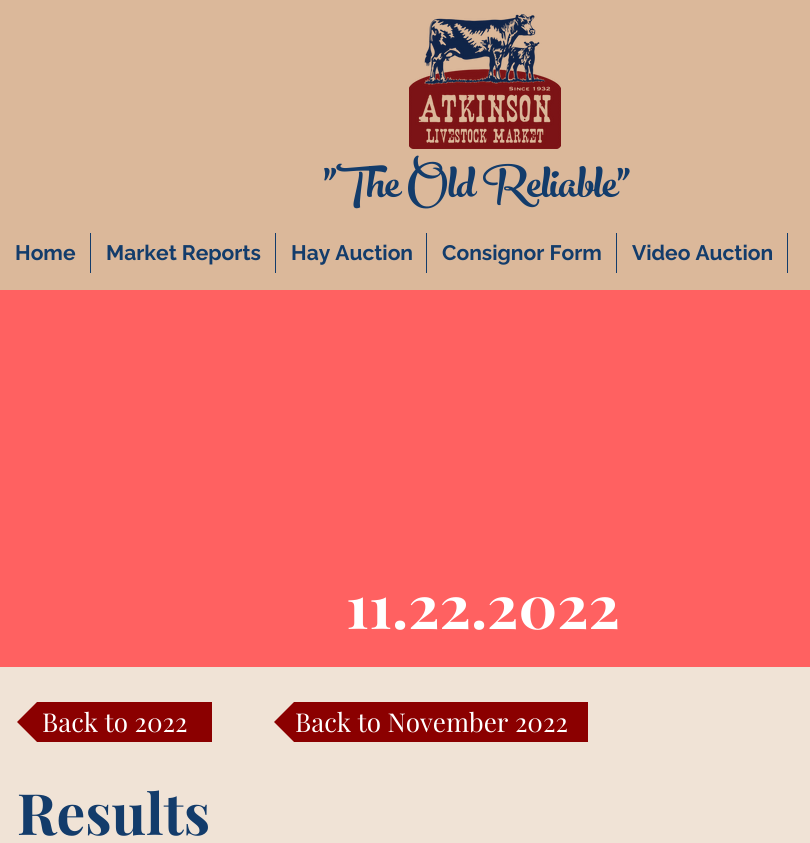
import math
import cairo

surface = cairo.ImageSurface(cairo.FORMAT_RGB24, 810, 843)
cr = cairo.Context(surface)
options = cairo.FontOptions()
options.set_hint_metrics(cairo.HINT_METRICS_OFF)
options.set_hint_style(cairo.HINT_STYLE_NONE)
cr.set_font_options(options)
cr.set_miter_limit(4)


def rgb(code):
    cr.set_source_rgb(*(v / 255 for v in bytes.fromhex(code[-6:])))


def image(path, x, y, w, h):
    cr.save()
    cr.set_source_surface(cairo.ImageSurface.create_from_png(path), x, y)
    cr.rectangle(x, y, w, h)
    cr.fill()
    cr.restore()


rgb("#dbb89a")
cr.paint()
image("img/1.png", 409, 14, 152, 135)
for x, y, w, h, color in [
    (90, 233, 1, 40, "#133c6b"),
    (275, 233, 1, 40, "#133c6b"),
    (426, 233, 1, 40, "#133c6b"),
    (616, 233, 1, 40, "#133c6b"),
    (787, 233, 1, 40, "#133c6b"),
    (0, 290, 810, 377, "#ff6161"),
    (0, 667, 810, 176, "#f0e3d6"),
]:
    rgb(color)
    cr.rectangle(x, y, w, h)
    cr.fill()
cr.save()
cr.rectangle(17, 702, 195, 40)
cr.clip()
rgb("#8b0000")
cr.new_path()
cr.move_to(67, 722)
cr.line_to(17, 722)
cr.line_to(67, 672)
cr.close_path()
cr.move_to(17, 722)
cr.line_to(67, 722)
cr.line_to(67, 772)
cr.close_path()
cr.fill()
cr.restore()
rgb("#8b0000")
cr.rectangle(67, 702, 145, 40)
cr.fill()
cr.save()
cr.rectangle(274, 702, 314, 40)
cr.clip()
cr.new_path()
cr.move_to(324, 722)
cr.line_to(274, 722)
cr.line_to(324, 672)
cr.close_path()
cr.move_to(274, 722)
cr.line_to(324, 722)
cr.line_to(324, 772)
cr.close_path()
cr.fill()
cr.restore()
cr.rectangle(324, 702, 264, 40)
cr.fill()
cr.select_font_face("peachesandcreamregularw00")
cr.set_font_size(65)
rgb("#133c6b")
cr.move_to(324, 197)
cr.show_text("\"The Old Reliable\"")
cr.select_font_face("Raleway", cairo.FONT_SLANT_NORMAL, cairo.FONT_WEIGHT_BOLD)
cr.set_font_size(21)
for x, y, s in [
    (15, 260, "Home"),
    (106, 260, "Market Reports"),
    (291, 260, "Hay Auction"),
    (442, 260, "Consignor Form"),
    (632, 260, "Video Auction"),
]:
    cr.move_to(x, y)
    cr.show_text(s)
cr.select_font_face("Playfair Display", cairo.FONT_SLANT_NORMAL, cairo.FONT_WEIGHT_BOLD)
cr.set_font_size(60)
rgb("#ffffff")
cr.move_to(346, 629)
cr.show_text("11.22.2022")
cr.select_font_face("Playfair Display")
cr.set_font_size(26)
cr.move_to(42, 732)
cr.show_text("Back to 2022")
cr.move_to(295, 732)
cr.show_text("Back to November 2022")
cr.select_font_face("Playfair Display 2", cairo.FONT_SLANT_NORMAL, cairo.FONT_WEIGHT_BOLD)
cr.set_font_size(57)
rgb("#133c6b")
cr.move_to(17, 835)
cr.show_text("Results")
surface.write_to_png("page.png")
